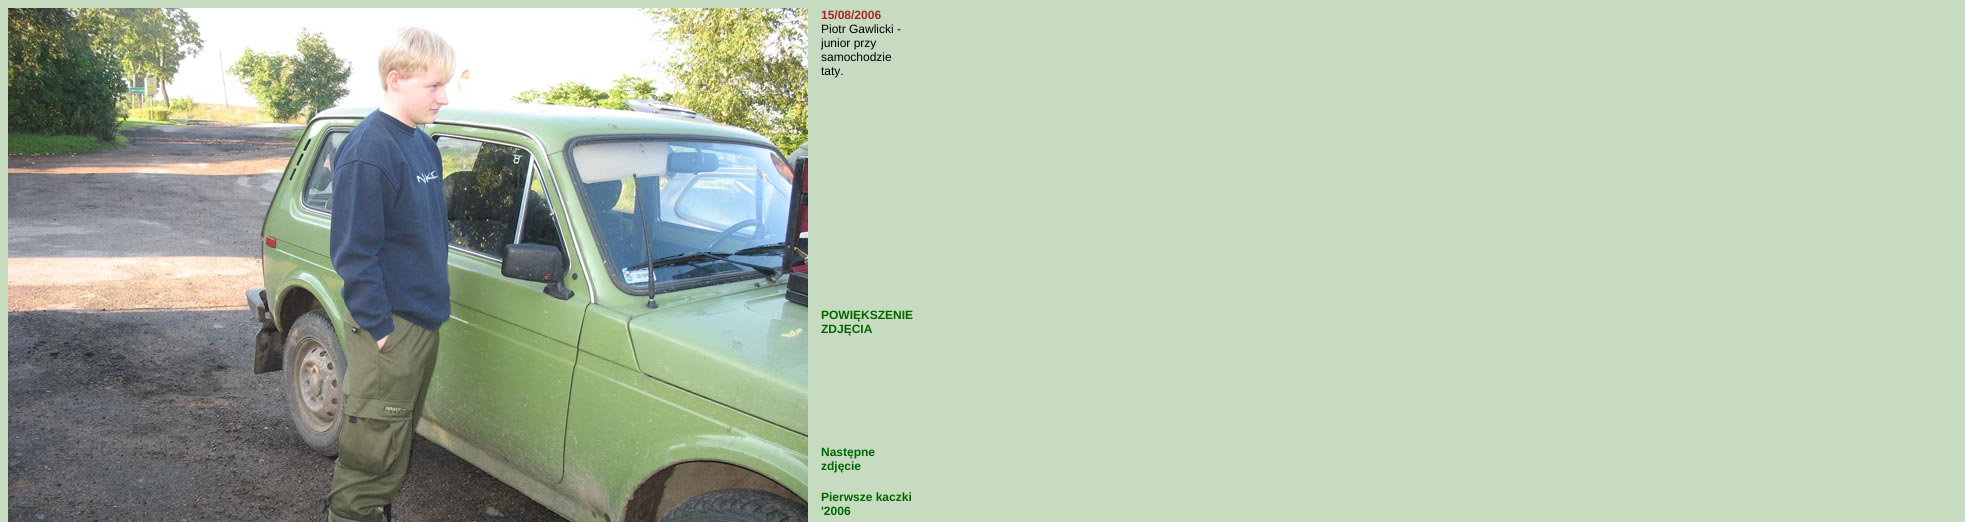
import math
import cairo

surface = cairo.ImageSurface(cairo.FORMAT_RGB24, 1965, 522)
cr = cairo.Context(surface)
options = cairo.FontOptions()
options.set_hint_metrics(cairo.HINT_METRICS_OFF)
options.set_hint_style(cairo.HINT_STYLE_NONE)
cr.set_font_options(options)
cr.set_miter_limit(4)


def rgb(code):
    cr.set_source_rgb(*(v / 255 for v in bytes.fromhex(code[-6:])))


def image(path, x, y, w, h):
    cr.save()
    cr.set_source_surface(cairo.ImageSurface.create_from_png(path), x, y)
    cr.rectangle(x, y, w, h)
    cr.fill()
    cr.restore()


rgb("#c7dbc1")
cr.paint()
image("img/1.png", 8, 8, 800, 514)
cr.select_font_face("Liberation Sans", cairo.FONT_SLANT_NORMAL, cairo.FONT_WEIGHT_BOLD)
cr.set_font_size(12)
rgb("#a52a2a")
cr.move_to(821, 19)
cr.show_text("15/08/2006")
cr.select_font_face("Liberation Sans")
rgb("#000000")
for x, y, s in [
    (821, 33, "Piotr Gawlicki -"),
    (821, 47, "junior przy"),
    (821, 61, "samochodzie"),
    (821, 75, "taty."),
]:
    cr.move_to(x, y)
    cr.show_text(s)
cr.select_font_face("Liberation Sans", cairo.FONT_SLANT_NORMAL, cairo.FONT_WEIGHT_BOLD)
rgb("#006600")
for x, y, s in [
    (821, 319, "POWIĘKSZENIE"),
    (821, 333, "ZDJĘCIA"),
    (821, 456, "Następne"),
    (821, 470, "zdjęcie"),
    (821, 501, "Pierwsze kaczki"),
    (821, 515, "'2006"),
]:
    cr.move_to(x, y)
    cr.show_text(s)
surface.write_to_png("page.png")
